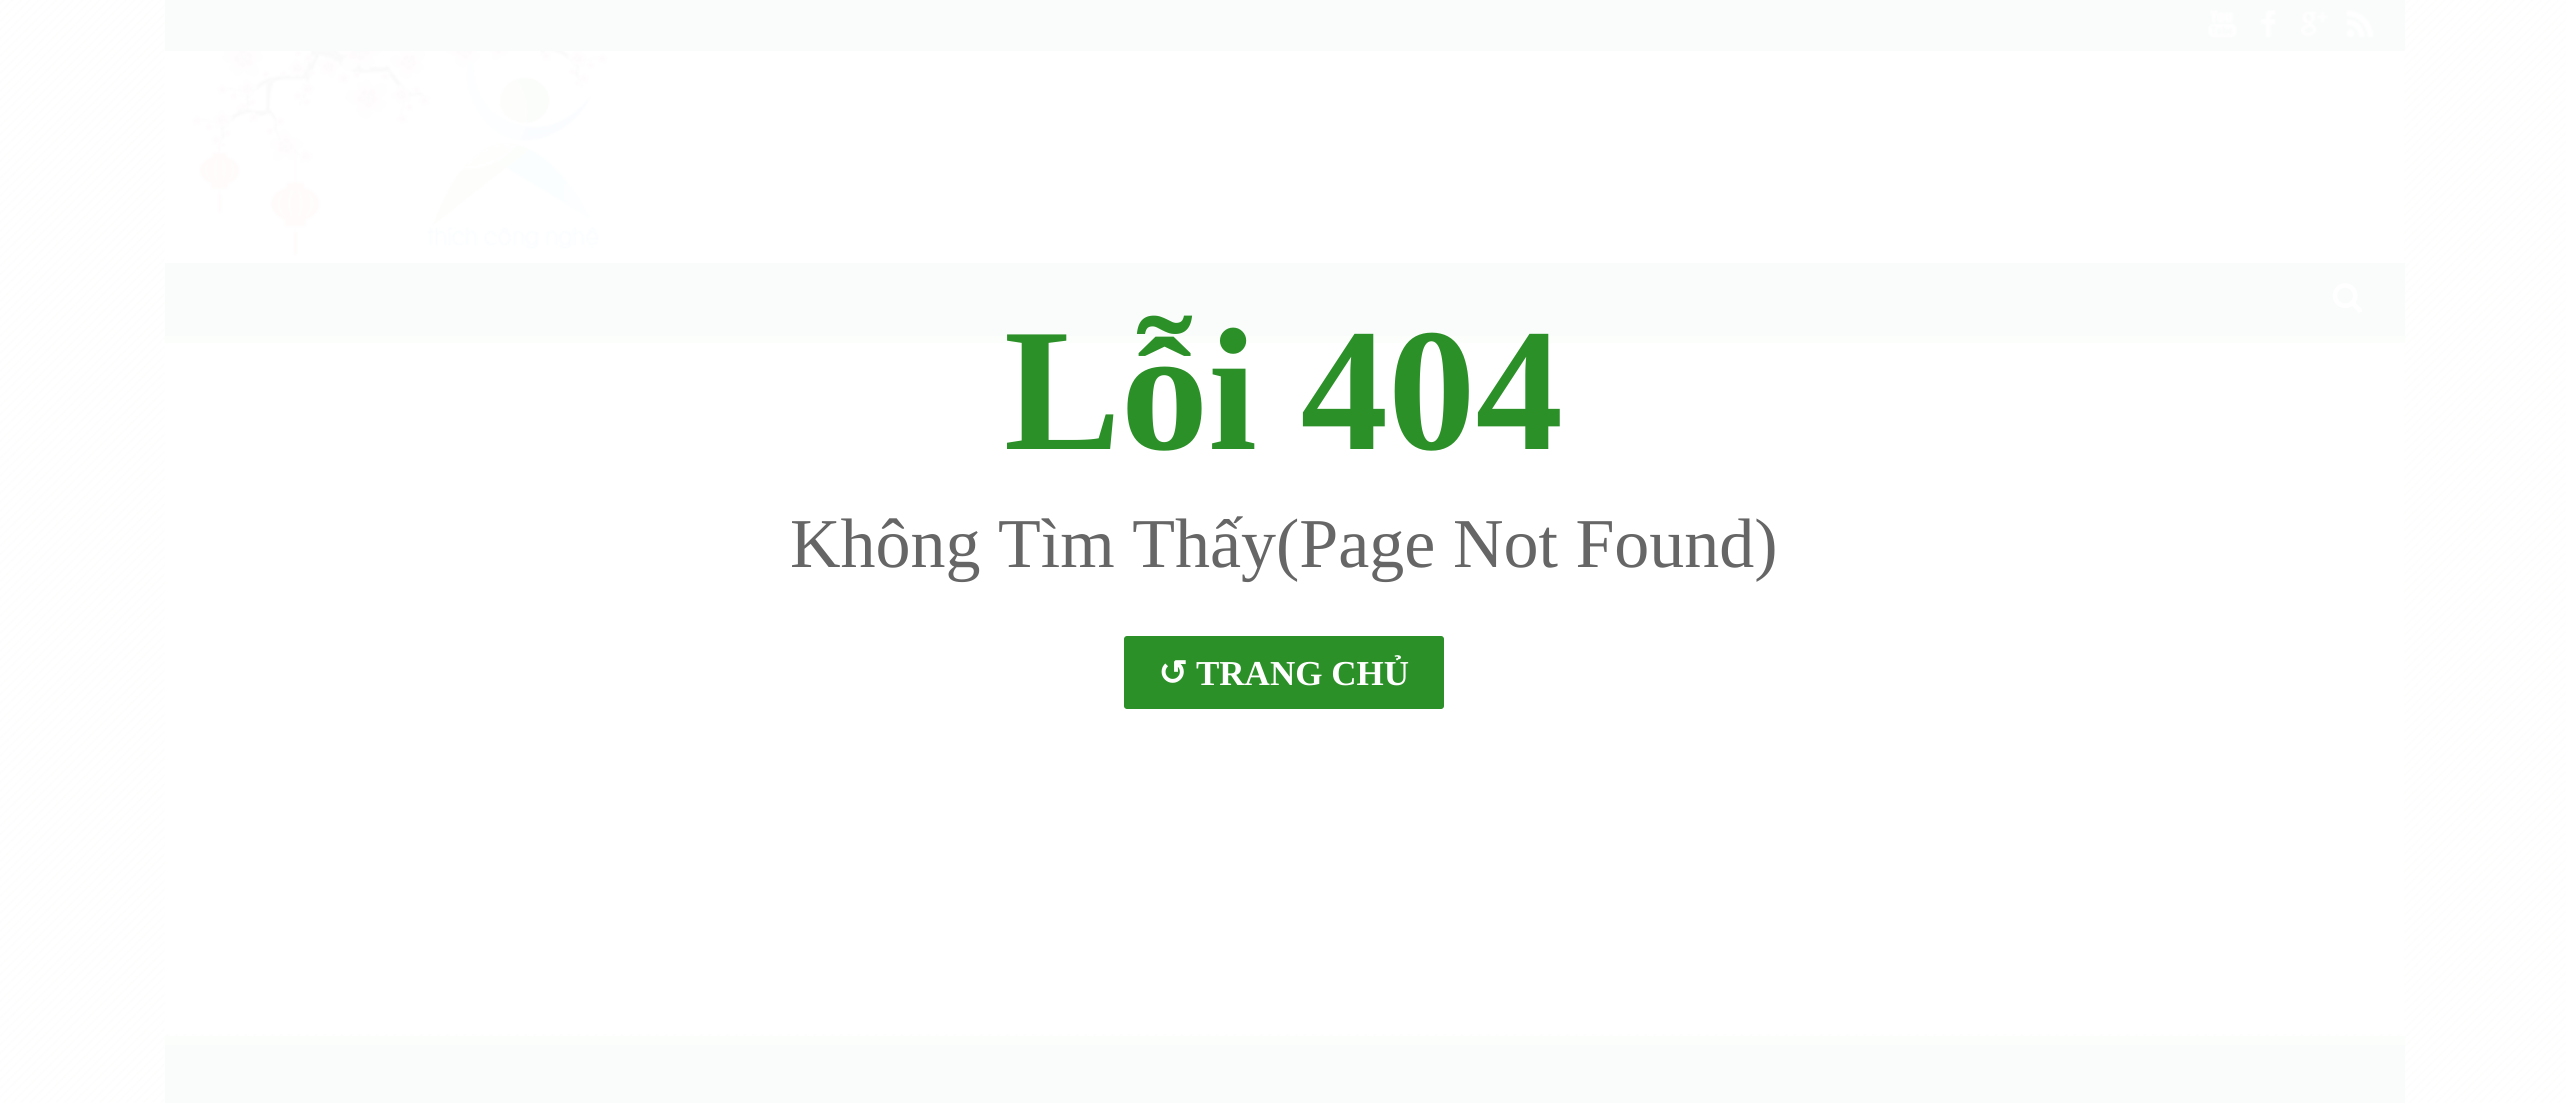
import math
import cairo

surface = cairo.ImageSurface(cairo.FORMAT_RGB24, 2566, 1103)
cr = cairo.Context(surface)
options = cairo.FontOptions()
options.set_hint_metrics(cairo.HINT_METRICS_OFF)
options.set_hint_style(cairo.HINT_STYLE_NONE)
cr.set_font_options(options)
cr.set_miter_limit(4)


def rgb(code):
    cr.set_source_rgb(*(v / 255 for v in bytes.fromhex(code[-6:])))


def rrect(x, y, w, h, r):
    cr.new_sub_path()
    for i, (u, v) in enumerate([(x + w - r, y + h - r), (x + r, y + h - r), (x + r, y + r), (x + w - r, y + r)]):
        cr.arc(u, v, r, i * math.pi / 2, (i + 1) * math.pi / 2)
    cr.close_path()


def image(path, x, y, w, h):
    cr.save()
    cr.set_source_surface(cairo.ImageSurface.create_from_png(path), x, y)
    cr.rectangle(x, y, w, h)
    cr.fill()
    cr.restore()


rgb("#ffffff")
cr.paint()
image("img/1.png", 0, 0, 2566, 1103)
rgb("#ffffff")
cr.rectangle(165, 51, 2239, 983)
cr.fill()
rgb("#fafcfb")
cr.rectangle(165, 0, 2240, 51)
cr.fill()
image("img/2.png", 2208, 10, 29, 28)
image("img/3.png", 2260, 10, 16, 29)
image("img/4.png", 2300, 10, 28, 28)
image("img/5.png", 2345, 10, 29, 29)
image("img/6.png", 190, 51, 420, 205)
cr.rectangle(165, 263, 2240, 73)
cr.fill()
rgb("#fcfefb")
cr.rectangle(165, 336, 2240, 7)
cr.fill()
image("img/7.png", 2332, 283, 30, 30)
rgb("#fafcfb")
cr.rectangle(165, 1045, 2240, 58)
cr.fill()
rgb("#fcfefb")
cr.rectangle(165, 1036, 2240, 9)
cr.fill()
rgb("#2c9028")
rrect(1123, 635, 322, 75, 4)
cr.fill_preserve()
rgb("#ffffff")
cr.stroke()
cr.select_font_face("Liberation Serif", cairo.FONT_SLANT_NORMAL, cairo.FONT_WEIGHT_BOLD)
cr.set_font_size(175)
rgb("#2c9028")
cr.move_to(1004, 449)
cr.show_text("Lỗi 404")
cr.select_font_face("Liberation Serif")
cr.set_font_size(70)
rgb("#666666")
cr.move_to(790, 567)
cr.show_text("Không Tìm Thấy(Page Not Found)")
cr.select_font_face("DejaVu Sans", cairo.FONT_SLANT_NORMAL, cairo.FONT_WEIGHT_BOLD)
cr.set_font_size(35)
rgb("#ffffff")
cr.move_to(1158, 685)
cr.show_text("↺")
cr.select_font_face("Liberation Serif", cairo.FONT_SLANT_NORMAL, cairo.FONT_WEIGHT_BOLD)
cr.move_to(1196, 685)
cr.show_text("TRANG CHỦ")
surface.write_to_png("page.png")
